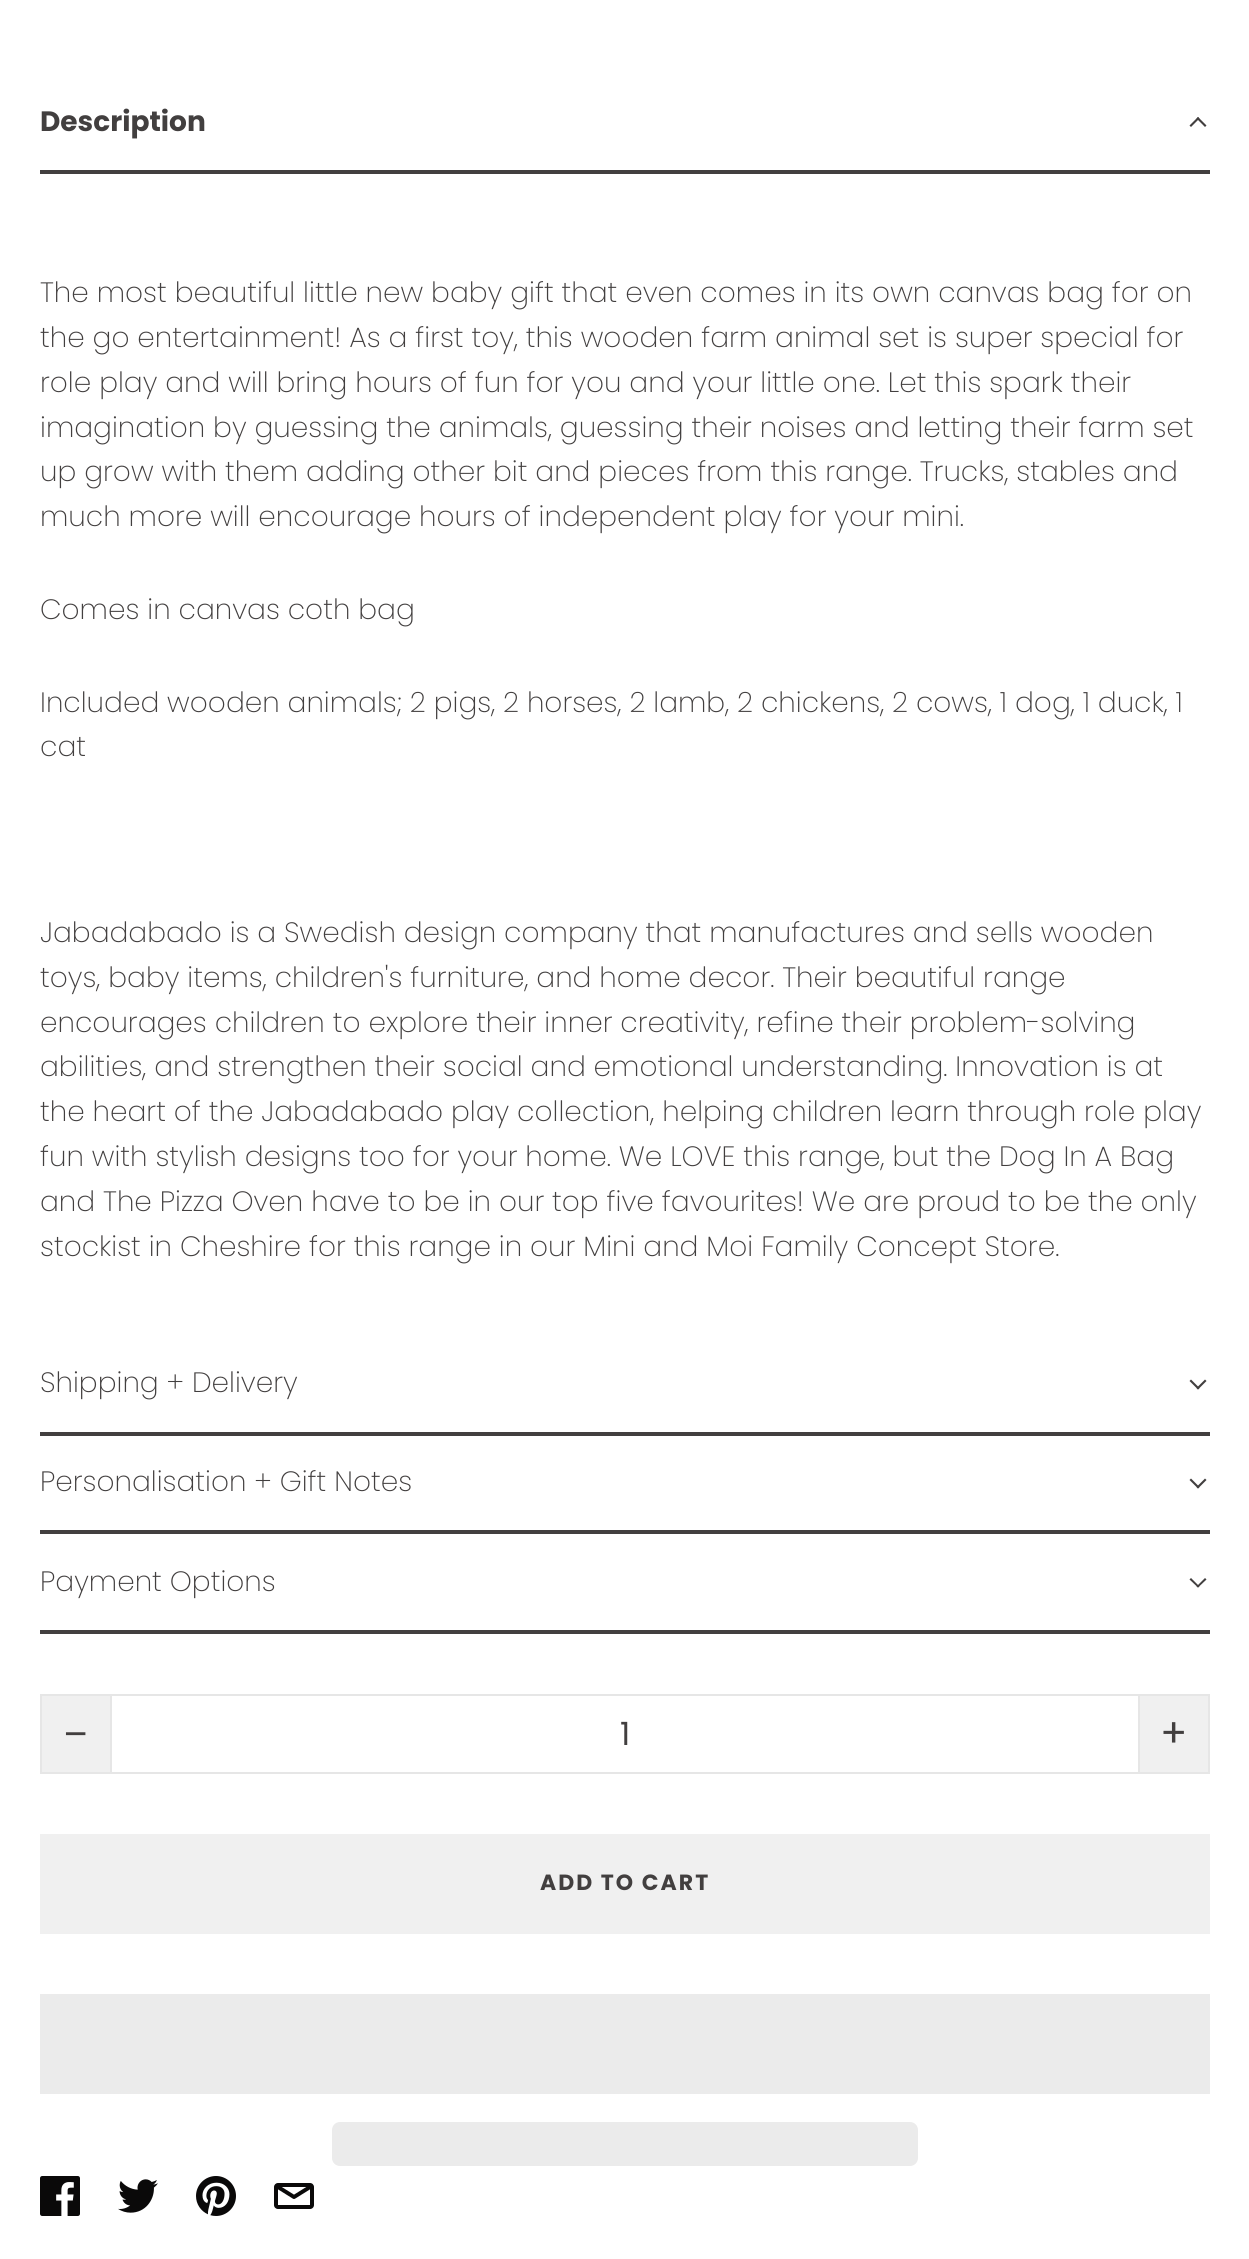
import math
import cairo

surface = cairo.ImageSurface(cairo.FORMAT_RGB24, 1249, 2259)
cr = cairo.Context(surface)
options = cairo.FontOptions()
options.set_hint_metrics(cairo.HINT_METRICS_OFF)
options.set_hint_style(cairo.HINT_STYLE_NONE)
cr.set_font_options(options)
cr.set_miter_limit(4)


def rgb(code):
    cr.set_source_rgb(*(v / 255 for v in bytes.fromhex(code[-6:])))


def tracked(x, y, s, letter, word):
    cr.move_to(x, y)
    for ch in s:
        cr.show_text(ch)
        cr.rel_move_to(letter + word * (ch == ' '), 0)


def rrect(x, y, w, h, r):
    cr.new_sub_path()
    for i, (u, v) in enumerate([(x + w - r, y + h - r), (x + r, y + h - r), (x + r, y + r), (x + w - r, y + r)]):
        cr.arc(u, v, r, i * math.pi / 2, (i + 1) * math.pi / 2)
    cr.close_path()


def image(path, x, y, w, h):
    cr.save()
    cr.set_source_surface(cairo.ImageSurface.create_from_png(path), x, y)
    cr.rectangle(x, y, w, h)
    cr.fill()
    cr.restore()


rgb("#ffffff")
cr.paint()
rgb("#423f3f")
cr.rectangle(40, 170, 1170, 4)
cr.fill()
cr.new_path()
cr.move_to(1191, 127)
cr.line_to(1189.5, 125.5)
cr.line_to(1198, 117)
cr.line_to(1199.5, 118.5)
cr.close_path()
cr.fill()
cr.new_path()
cr.move_to(1205, 127)
cr.line_to(1196.5, 118.5)
cr.line_to(1198, 117)
cr.line_to(1206.5, 125.5)
cr.close_path()
cr.fill()
cr.rectangle(40, 1432, 1170, 4)
cr.fill()
cr.new_path()
cr.move_to(1205, 1379.5)
cr.line_to(1206.5, 1381)
cr.line_to(1198, 1389.5)
cr.line_to(1196.5, 1388)
cr.close_path()
cr.fill()
cr.new_path()
cr.move_to(1191, 1379.5)
cr.line_to(1199.5, 1388)
cr.line_to(1198, 1389.5)
cr.line_to(1189.5, 1381)
cr.close_path()
cr.fill()
cr.rectangle(40, 1530, 1170, 4)
cr.fill()
cr.new_path()
cr.move_to(1205, 1478.5)
cr.line_to(1206.5, 1480)
cr.line_to(1198, 1488.5)
cr.line_to(1196.5, 1487)
cr.close_path()
cr.fill()
cr.new_path()
cr.move_to(1191, 1478.5)
cr.line_to(1199.5, 1487)
cr.line_to(1198, 1488.5)
cr.line_to(1189.5, 1480)
cr.close_path()
cr.fill()
cr.rectangle(40, 1630, 1170, 4)
cr.fill()
cr.new_path()
cr.move_to(1205, 1578)
cr.line_to(1206.5, 1579.5)
cr.line_to(1198, 1587.5)
cr.line_to(1196.5, 1586.5)
cr.close_path()
cr.fill()
cr.new_path()
cr.move_to(1191, 1578)
cr.line_to(1199.5, 1586.5)
cr.line_to(1198, 1587.5)
cr.line_to(1189.5, 1579.5)
cr.close_path()
cr.fill()
for x, y, w, h, color in [
    (42, 1696, 68, 76, "#f0f0f0"),
    (40, 1694, 70, 2, "#e6e6e6"),
    (40, 1772, 70, 2, "#e6e6e6"),
    (40, 1694, 2, 80, "#e6e6e6"),
]:
    rgb(color)
    cr.rectangle(x, y, w, h)
    cr.fill()
cr.rectangle(111, 1695, 1028, 78)
cr.stroke()
for x, y, w, h, color in [
    (1140, 1696, 68, 76, "#f0f0f0"),
    (1140, 1694, 70, 2, "#e6e6e6"),
    (1208, 1694, 2, 80, "#e6e6e6"),
    (1140, 1772, 70, 2, "#e6e6e6"),
    (40, 1834, 1170, 100, "#f0f0f0"),
    (40, 1994, 1170, 100, "#ebebeb"),
]:
    rgb(color)
    cr.rectangle(x, y, w, h)
    cr.fill()
rrect(332, 2122, 586, 44, 8)
cr.fill()
image("img/1.png", 40, 2176, 40, 40)
image("img/2.png", 118, 2179, 40, 34)
image("img/3.png", 196, 2176, 40, 40)
image("img/4.png", 274, 2183, 40, 26)
cr.select_font_face("Poppins", cairo.FONT_SLANT_NORMAL, cairo.FONT_WEIGHT_BOLD)
cr.set_font_size(28)
rgb("#423f3f")
cr.move_to(40, 131)
cr.show_text("Description")
cr.select_font_face("Poppins Light")
for x, y, s in [
    (40, 302, "The most beautiful little new baby gift that even comes in its own canvas bag for on"),
    (40, 347, "the go entertainment! As a first toy, this wooden farm animal set is super special for"),
    (40, 392, "role play and will bring hours of fun for you and your little one. Let this spark their"),
    (40, 437, "imagination by guessing the animals, guessing their noises and letting their farm set"),
    (40, 481, "up grow with them adding other bit and pieces from this range. Trucks, stables and"),
    (40, 526, "much more will encourage hours of independent play for your mini."),
    (40, 619, "Comes in canvas coth bag"),
    (40, 712, "Included wooden animals; 2 pigs, 2 horses, 2 lamb, 2 chickens, 2 cows, 1 dog, 1 duck, 1"),
    (40, 756, "cat"),
    (40, 942, "Jabadabado is a Swedish design company that manufactures and sells wooden"),
    (40, 987, "toys, baby items, children's furniture, and home decor. Their beautiful range"),
    (40, 1032, "encourages children to explore their inner creativity, refine their problem-solving"),
    (40, 1076, "abilities, and strengthen their social and emotional understanding. Innovation is at"),
    (40, 1121, "the heart of the Jabadabado play collection, helping children learn through role play"),
    (40, 1166, "fun with stylish designs too for your home. We LOVE this range, but the Dog In A Bag"),
    (40, 1211, "and The Pizza Oven have to be in our top five favourites! We are proud to be the only"),
    (40, 1256, "stockist in Cheshire for this range in our Mini and Moi Family Concept Store."),
    (40, 1392, "Shipping + Delivery"),
    (40, 1491, "Personalisation + Gift Notes"),
    (40, 1591, "Payment Options"),
]:
    cr.move_to(x, y)
    cr.show_text(s)
cr.select_font_face("Liberation Sans")
cr.set_font_size(40)
cr.move_to(64, 1747)
cr.show_text("−")
cr.select_font_face("Poppins")
cr.set_font_size(32)
cr.move_to(620, 1745)
cr.show_text("1")
cr.set_font_size(40)
cr.move_to(1160, 1747)
cr.show_text("+")
cr.select_font_face("Poppins", cairo.FONT_SLANT_NORMAL, cairo.FONT_WEIGHT_BOLD)
cr.set_font_size(22)
tracked(540, 1890, "ADD TO CART", 2, 0)
surface.write_to_png("page.png")
